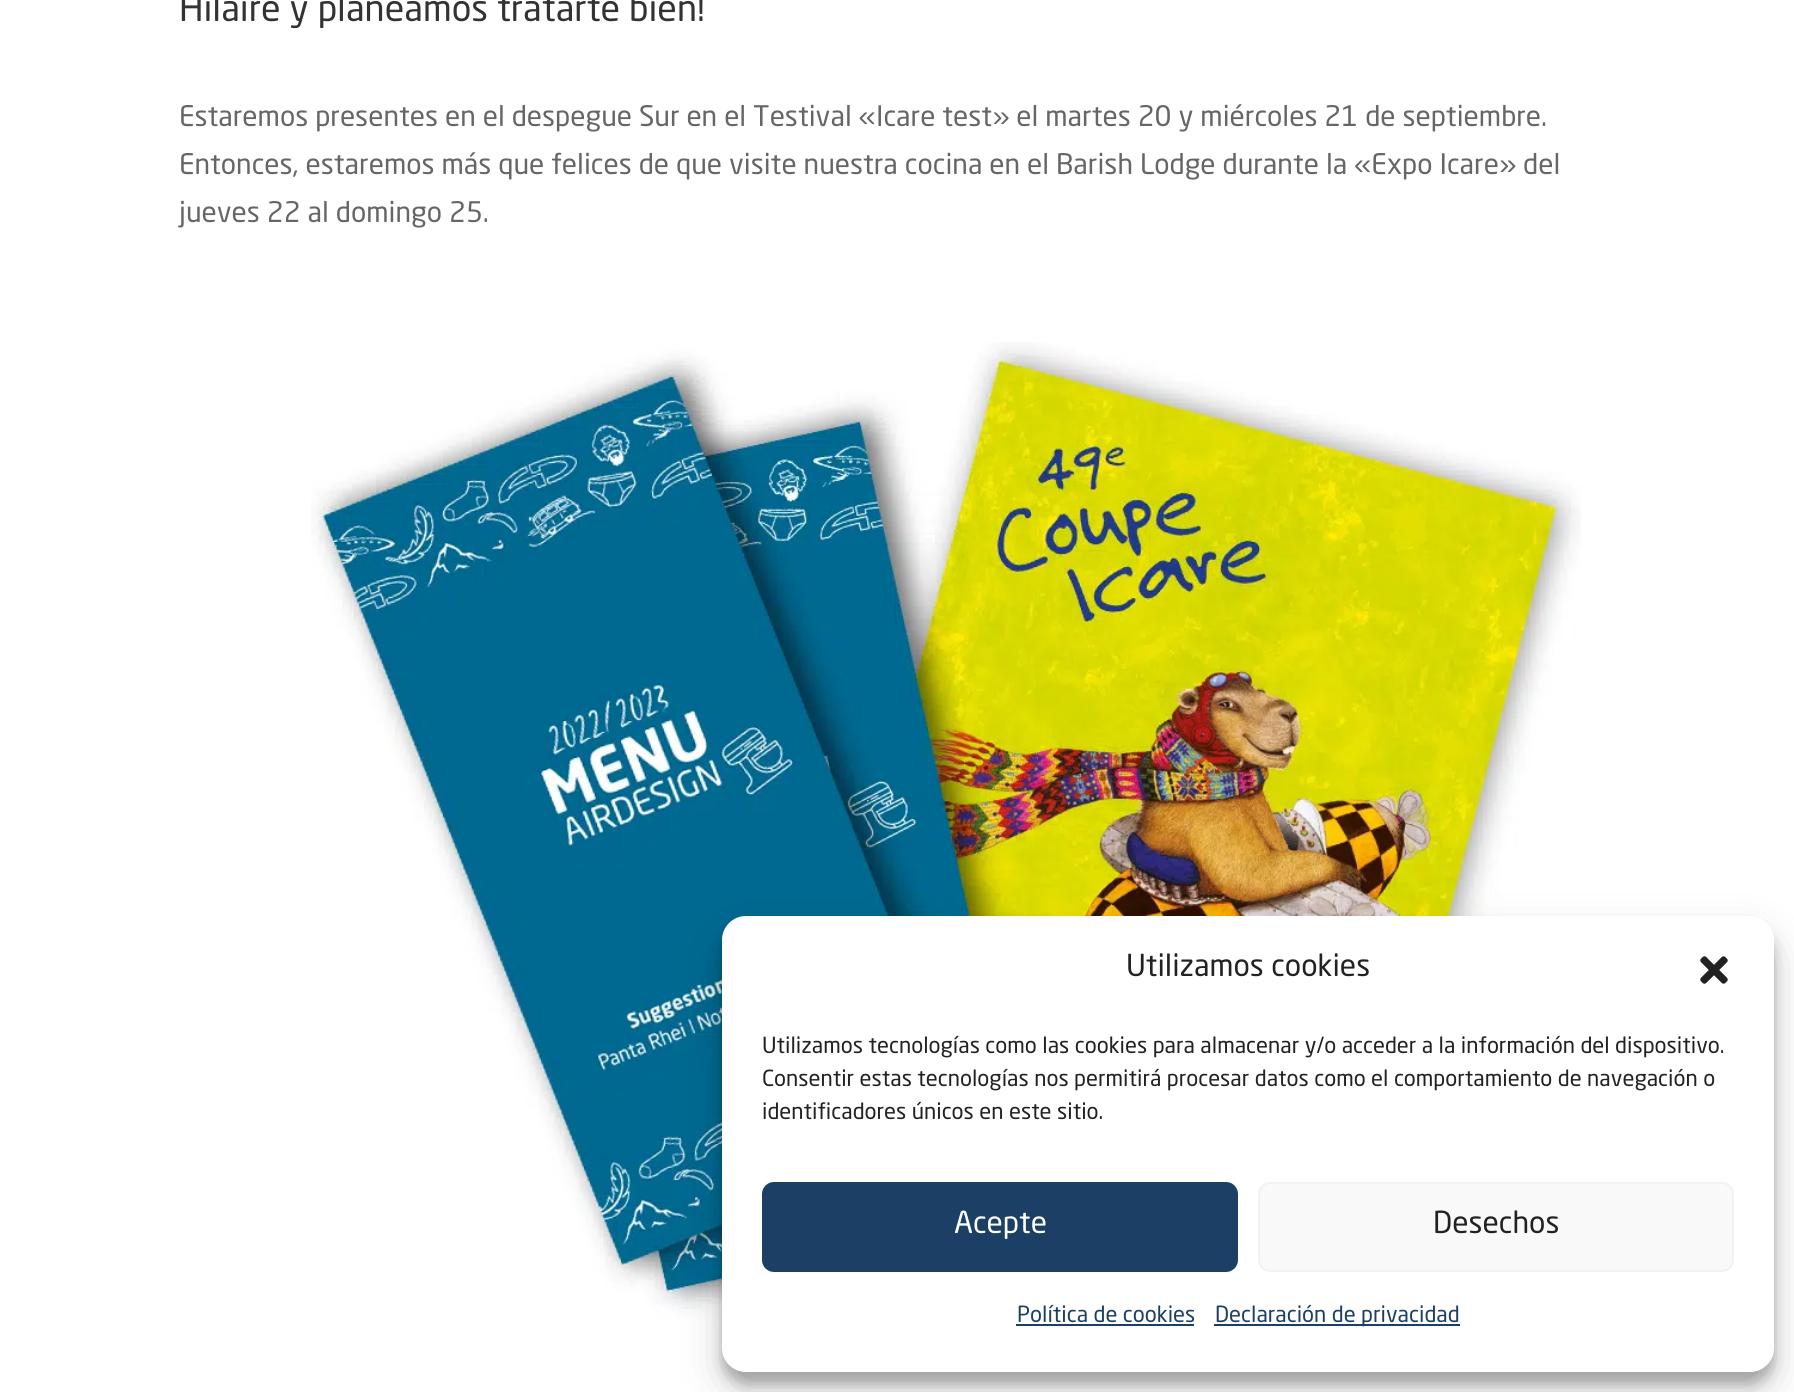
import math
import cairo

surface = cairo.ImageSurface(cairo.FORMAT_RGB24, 1794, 1392)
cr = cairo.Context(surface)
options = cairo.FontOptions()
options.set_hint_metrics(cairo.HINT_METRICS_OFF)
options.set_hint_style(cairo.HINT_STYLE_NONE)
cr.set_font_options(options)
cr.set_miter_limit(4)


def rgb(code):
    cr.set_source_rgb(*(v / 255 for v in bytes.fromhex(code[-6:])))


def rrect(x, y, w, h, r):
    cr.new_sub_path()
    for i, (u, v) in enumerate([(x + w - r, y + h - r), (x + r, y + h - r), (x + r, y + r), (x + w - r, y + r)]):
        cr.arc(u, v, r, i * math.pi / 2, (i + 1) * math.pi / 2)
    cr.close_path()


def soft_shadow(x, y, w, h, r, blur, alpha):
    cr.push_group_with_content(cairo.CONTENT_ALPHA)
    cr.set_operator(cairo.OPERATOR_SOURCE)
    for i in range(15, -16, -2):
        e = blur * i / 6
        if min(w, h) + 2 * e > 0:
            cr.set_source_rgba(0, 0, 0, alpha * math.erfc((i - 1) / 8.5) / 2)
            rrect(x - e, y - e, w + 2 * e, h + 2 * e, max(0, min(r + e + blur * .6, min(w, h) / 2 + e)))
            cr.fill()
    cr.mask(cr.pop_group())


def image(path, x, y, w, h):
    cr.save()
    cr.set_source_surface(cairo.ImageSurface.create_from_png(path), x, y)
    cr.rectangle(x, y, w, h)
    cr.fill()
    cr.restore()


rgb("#ffffff")
cr.paint()
image("img/1.png", 311, 342, 1270, 979)
rgb("#000000")
soft_shadow(722, 928, 1052, 456, 24, 6, 0.23)
soft_shadow(722, 936, 1052, 456, 24, 20, 0.19)
rgb("#ffffff")
rrect(722, 916, 1052, 456, 24)
cr.fill()
image("img/2.png", 1700, 956, 28, 28)
rgb("#1c3f65")
rrect(763, 1183, 474, 88, 11)
cr.fill_preserve()
cr.stroke()
rgb("#f9f9f9")
rrect(1259, 1183, 474, 88, 11)
cr.fill_preserve()
rgb("#f2f2f2")
cr.stroke()
rgb("#1c3f65")
cr.rectangle(1016, 1324, 178, 2)
cr.fill()
cr.rectangle(1214, 1324, 246, 2)
cr.fill()
cr.select_font_face("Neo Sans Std")
cr.set_font_size(36)
rgb("#333333")
cr.move_to(179, 21)
cr.show_text("Hilaire y planeamos tratarte bien!")
cr.set_font_size(28)
rgb("#666666")
for x, y, s in [
    (179, 126, "Estaremos presentes en el despegue Sur en el Testival «Icare test» el martes 20 y miércoles 21 de septiembre."),
    (179, 174, "Entonces, estaremos más que felices de que visite nuestra cocina en el Barish Lodge durante la «Expo Icare» del"),
    (179, 222, "jueves 22 al domingo 25."),
]:
    cr.move_to(x, y)
    cr.show_text(s)
cr.set_font_size(30)
rgb("#222222")
cr.move_to(1126, 976)
cr.show_text("Utilizamos cookies")
cr.set_font_size(22)
for x, y, s in [
    (762, 1053, "Utilizamos tecnologías como las cookies para almacenar y/o acceder a la información del dispositivo."),
    (762, 1086, "Consentir estas tecnologías nos permitirá procesar datos como el comportamiento de navegación o"),
    (762, 1119, "identificadores únicos en este sitio."),
]:
    cr.move_to(x, y)
    cr.show_text(s)
cr.set_font_size(30)
rgb("#ffffff")
cr.move_to(954, 1233)
cr.show_text("Acepte")
rgb("#222222")
cr.move_to(1433, 1233)
cr.show_text("Desechos")
cr.set_font_size(22)
rgb("#1c3f65")
cr.move_to(1017, 1322)
cr.show_text("Política de cookies")
cr.move_to(1215, 1322)
cr.show_text("Declaración de privacidad")
surface.write_to_png("page.png")
